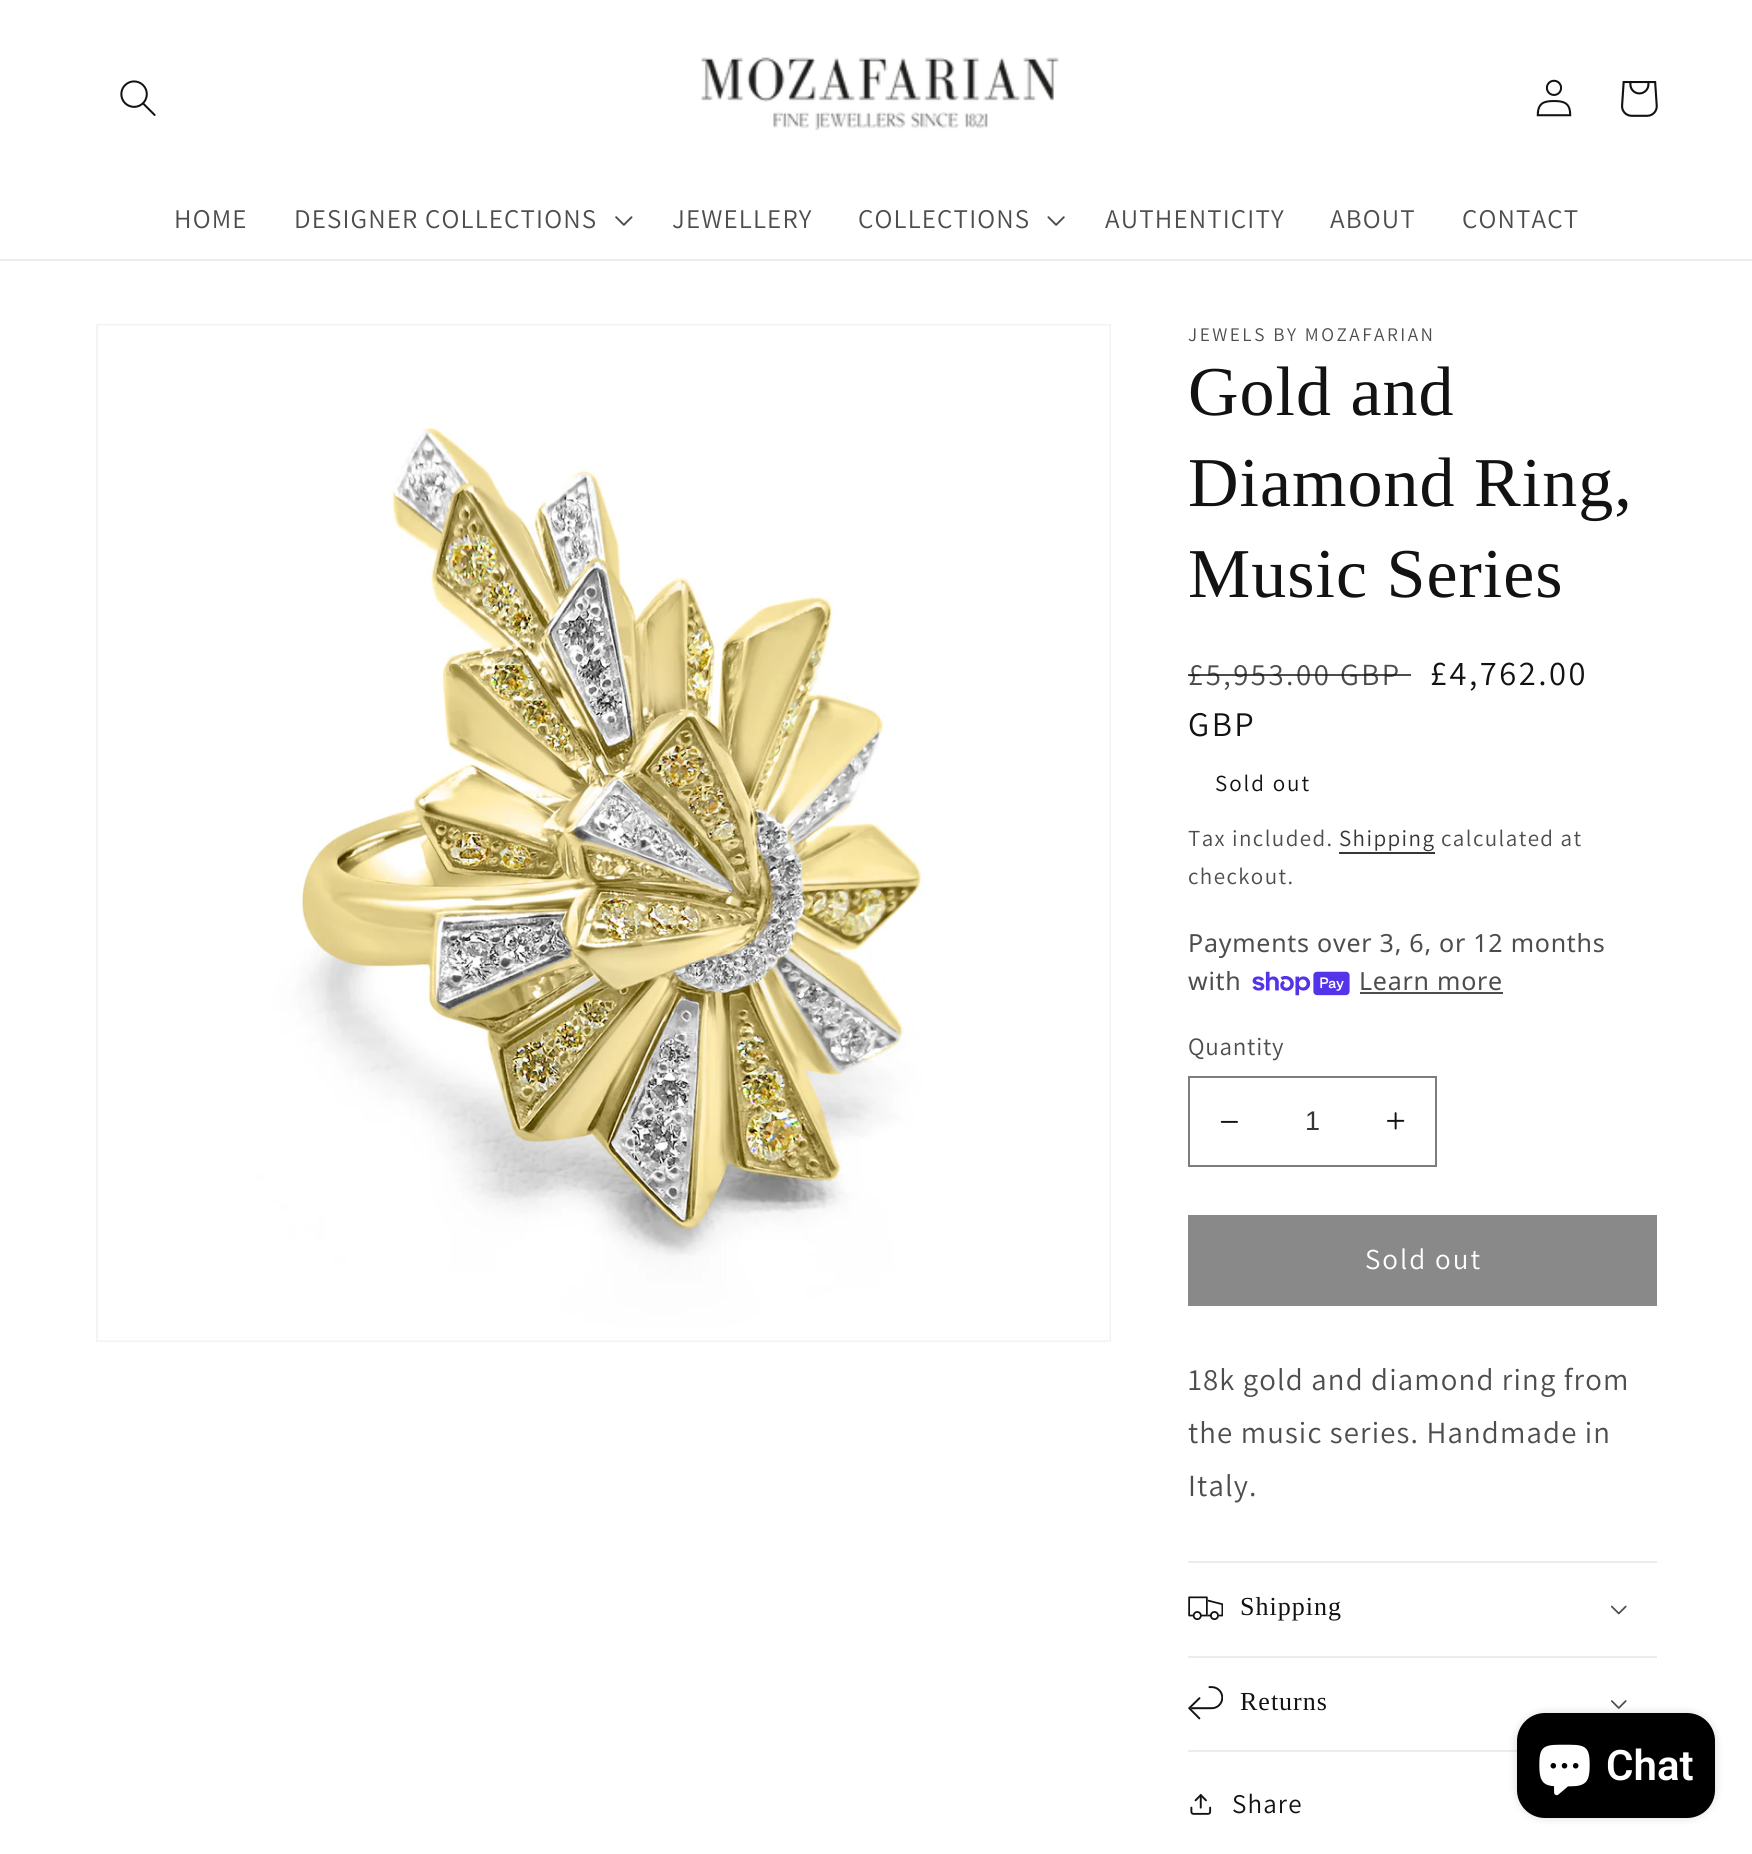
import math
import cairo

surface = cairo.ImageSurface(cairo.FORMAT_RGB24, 1752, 1854)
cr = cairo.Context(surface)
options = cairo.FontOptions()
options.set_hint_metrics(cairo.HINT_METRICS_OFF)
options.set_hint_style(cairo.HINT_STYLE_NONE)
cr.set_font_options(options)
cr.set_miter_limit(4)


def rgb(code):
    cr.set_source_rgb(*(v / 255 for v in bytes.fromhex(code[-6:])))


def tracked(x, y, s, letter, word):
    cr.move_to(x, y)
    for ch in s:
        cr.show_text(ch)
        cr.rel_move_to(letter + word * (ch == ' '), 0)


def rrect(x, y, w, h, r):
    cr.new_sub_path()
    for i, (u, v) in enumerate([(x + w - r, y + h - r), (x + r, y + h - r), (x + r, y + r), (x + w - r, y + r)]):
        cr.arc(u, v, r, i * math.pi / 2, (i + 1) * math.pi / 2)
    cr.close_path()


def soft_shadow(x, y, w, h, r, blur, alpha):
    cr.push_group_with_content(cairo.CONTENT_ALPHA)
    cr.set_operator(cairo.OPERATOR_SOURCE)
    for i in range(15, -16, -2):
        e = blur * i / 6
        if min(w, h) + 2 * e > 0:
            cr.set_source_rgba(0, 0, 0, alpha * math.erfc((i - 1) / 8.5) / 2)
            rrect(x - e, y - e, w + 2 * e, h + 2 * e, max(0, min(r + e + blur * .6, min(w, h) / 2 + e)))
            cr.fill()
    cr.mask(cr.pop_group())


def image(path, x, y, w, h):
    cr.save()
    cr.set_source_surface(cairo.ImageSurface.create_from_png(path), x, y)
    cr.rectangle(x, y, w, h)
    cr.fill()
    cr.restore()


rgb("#ffffff")
cr.paint()
rgb("#ececec")
cr.rectangle(0, 259, 1752, 2)
cr.fill()
image("img/1.png", 120, 80, 36, 36)
image("img/2.png", 701, 57, 358, 74)
image("img/3.png", 1536, 79, 36, 38)
image("img/4.png", 1621, 81, 37, 36)
image("img/5.png", 615, 216, 18, 10)
image("img/6.png", 1047, 216, 18, 10)
cr.rectangle(97, 325, 1013, 1016)
rgb("#f3f3f3")
cr.stroke()
image("img/7.png", 98, 325, 1012, 1016)
rgb("#363636")
cr.rectangle(1339, 852, 96, 2)
cr.fill()
image("img/8.png", 1252, 971, 98, 25)
rgb("#4d4d4d")
cr.rectangle(1360, 992, 143, 2)
cr.fill()
image("img/9.png", 1220, 1120, 18, 3)
image("img/10.png", 1387, 1112, 18, 18)
cr.rectangle(1189, 1077, 247, 89)
rgb("#7d7d7d")
cr.stroke()
for x, y, w, h, color in [
    (1188, 1215, 469, 91, "#898989"),
    (1188, 1561, 469, 2, "#ececec"),
    (1188, 1656, 469, 2, "#ececec"),
]:
    rgb(color)
    cr.rectangle(x, y, w, h)
    cr.fill()
image("img/11.png", 1188, 1596, 35, 25)
image("img/12.png", 1610, 1605, 17, 10)
cr.rectangle(1188, 1750, 329, 2)
cr.fill()
image("img/13.png", 1188, 1686, 35, 34)
image("img/14.png", 1611, 1700, 16, 9)
image("img/15.png", 1190, 1794, 22, 21)
rgb("#000000")
soft_shadow(1517, 1713, 198, 105, 28, 4.5, 0.15)
rgb("#000000")
rrect(1517, 1713, 198, 105, 28)
cr.fill()
image("img/16.png", 1539, 1744, 51, 52)
cr.select_font_face("Assistant")
cr.set_font_size(27)
rgb("#4d4d4d")
for x, y, s in [
    (174, 228, "HOME"),
    (294, 228, "DESIGNER COLLECTIONS"),
    (672, 228, "JEWELLERY"),
    (858, 228, "COLLECTIONS"),
    (1105, 228, "AUTHENTICITY"),
    (1330, 228, "ABOUT"),
    (1462, 228, "CONTACT"),
]:
    tracked(x, y, s, 1.15, 0)
cr.set_font_size(19.25)
tracked(1188, 341, "JEWELS BY MOZAFARIAN", 2.5, 0)
cr.select_font_face("Liberation Serif")
cr.set_font_size(70)
rgb("#121212")
for x, y, s in [
    (1188, 415, "Gold and"),
    (1188, 506, "Diamond Ring,"),
    (1188, 597, "Music Series"),
]:
    tracked(x, y, s, 1, 0)
cr.select_font_face("Assistant")
cr.set_font_size(30.75)
rgb("#4d4d4d")
tracked(1188, 685, "£5,953.00 GBP", 2.5, 0)
cr.set_source_rgba(0.071, 0.071, 0.071, 0.75)
cr.rectangle(1188, 674, 223, 2)
cr.fill()
cr.set_font_size(34.5)
rgb("#121212")
tracked(1430, 685, "£4,762.00", 2.5, 0)
tracked(1188, 736, "GBP", 2.5, 0)
cr.set_font_size(23)
tracked(1215, 791, "Sold out", 2, 0)
rgb("#4d4d4d")
tracked(1188, 846, "Tax included.", 1.4, 0)
rgb("#363636")
tracked(1339, 846, "Shipping", 1.4, 0)
rgb("#4d4d4d")
tracked(1441, 846, "calculated at", 1.4, 0)
tracked(1188, 884, "checkout.", 1.4, 0)
cr.select_font_face("Noto Sans")
cr.set_font_size(25)
for x, y, s in [
    (1188, 952, "Payments over 3, 6, or 12 months"),
    (1188, 990, "with"),
    (1359, 990, "Learn more"),
]:
    tracked(x, y, s, 0.75, 0)
cr.select_font_face("Assistant")
tracked(1188, 1055, "Quantity", 0.75, 0)
cr.select_font_face("Liberation Sans")
cr.set_font_size(27)
rgb("#363636")
cr.move_to(1305, 1130)
cr.show_text("1")
cr.select_font_face("Assistant")
cr.set_font_size(29)
rgb("#ffffff")
tracked(1365, 1269, "Sold out", 2, 0)
cr.set_font_size(30.75)
rgb("#4d4d4d")
for x, y, s in [
    (1188, 1390, "18k gold and diamond ring from"),
    (1188, 1443, "the music series. Handmade in"),
    (1188, 1496, "Italy."),
]:
    tracked(x, y, s, 1.15, 0)
cr.select_font_face("Liberation Serif")
cr.set_font_size(26)
rgb("#121212")
tracked(1240, 1615, "Shipping", 1, 0)
tracked(1240, 1710, "Returns", 1, 0)
cr.select_font_face("Assistant")
cr.set_font_size(27)
tracked(1232, 1813, "Share", 1.15, 0)
cr.select_font_face("Roboto SemiBold")
cr.set_font_size(42)
rgb("#ffffff")
cr.move_to(1606, 1780)
cr.show_text("Chat")
surface.write_to_png("page.png")
